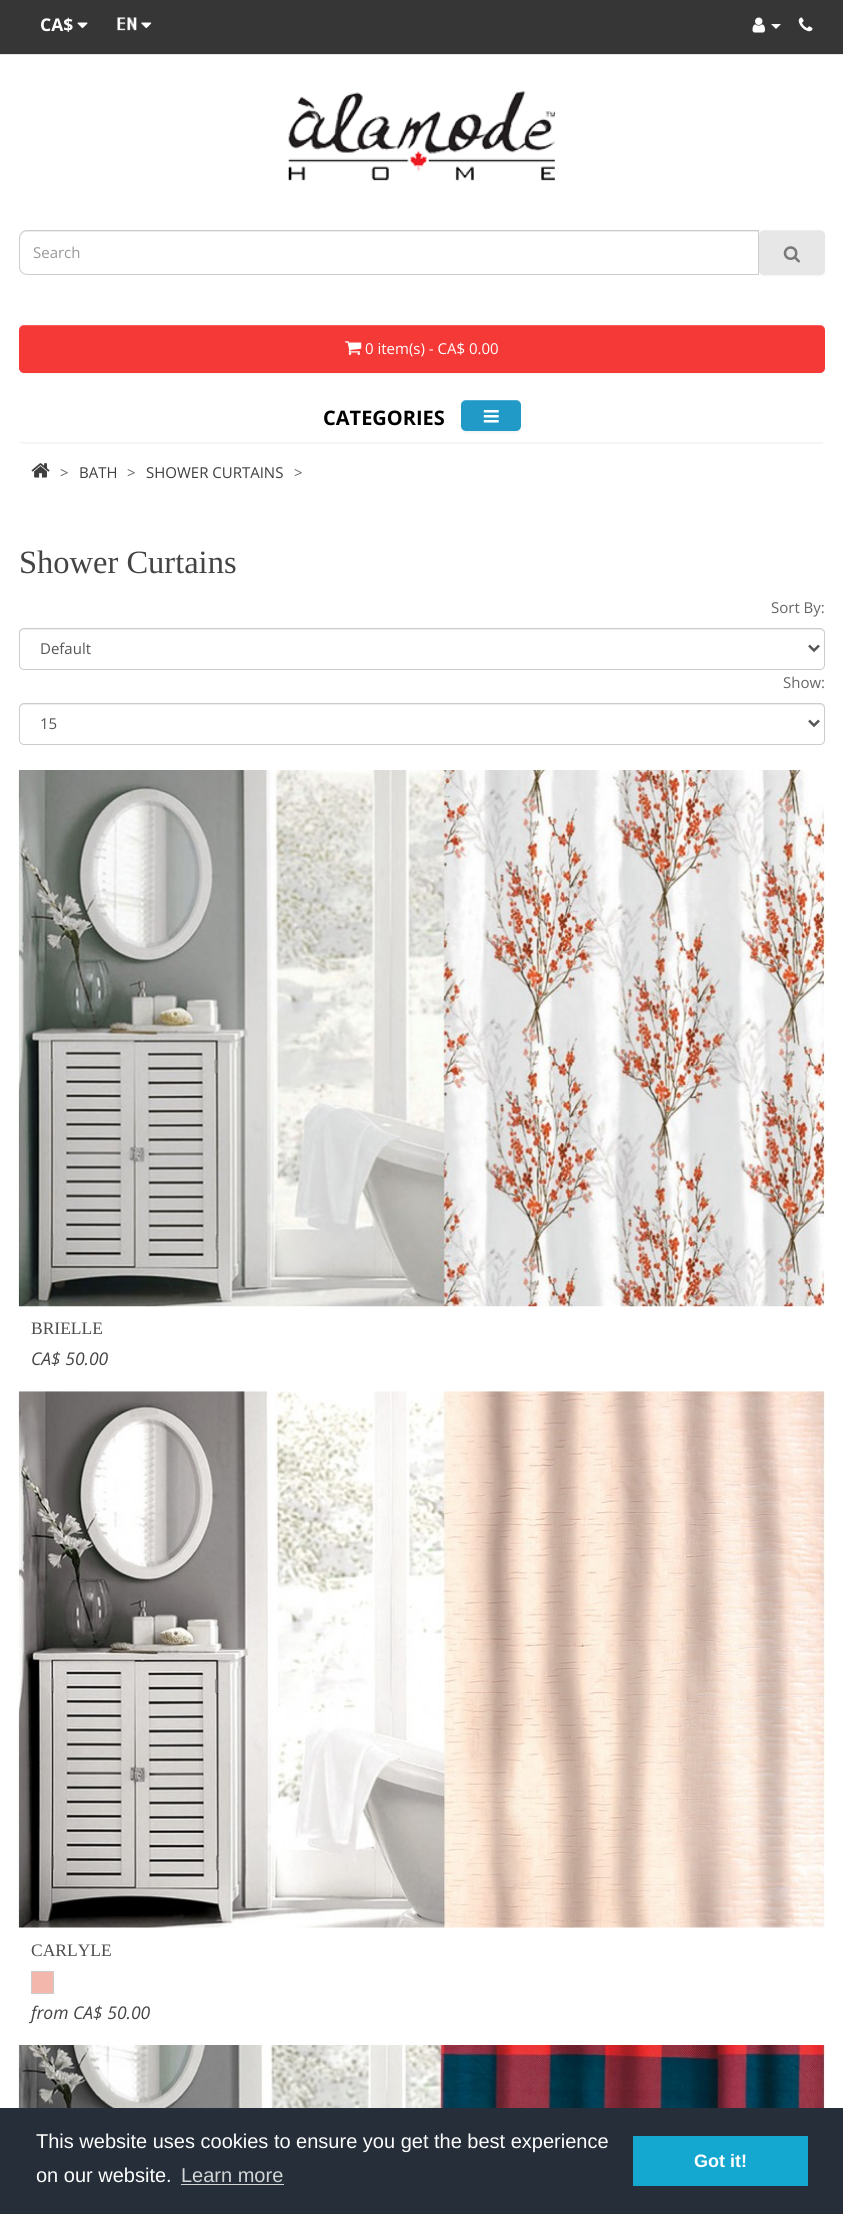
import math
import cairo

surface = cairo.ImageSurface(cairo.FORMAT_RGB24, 843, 2214)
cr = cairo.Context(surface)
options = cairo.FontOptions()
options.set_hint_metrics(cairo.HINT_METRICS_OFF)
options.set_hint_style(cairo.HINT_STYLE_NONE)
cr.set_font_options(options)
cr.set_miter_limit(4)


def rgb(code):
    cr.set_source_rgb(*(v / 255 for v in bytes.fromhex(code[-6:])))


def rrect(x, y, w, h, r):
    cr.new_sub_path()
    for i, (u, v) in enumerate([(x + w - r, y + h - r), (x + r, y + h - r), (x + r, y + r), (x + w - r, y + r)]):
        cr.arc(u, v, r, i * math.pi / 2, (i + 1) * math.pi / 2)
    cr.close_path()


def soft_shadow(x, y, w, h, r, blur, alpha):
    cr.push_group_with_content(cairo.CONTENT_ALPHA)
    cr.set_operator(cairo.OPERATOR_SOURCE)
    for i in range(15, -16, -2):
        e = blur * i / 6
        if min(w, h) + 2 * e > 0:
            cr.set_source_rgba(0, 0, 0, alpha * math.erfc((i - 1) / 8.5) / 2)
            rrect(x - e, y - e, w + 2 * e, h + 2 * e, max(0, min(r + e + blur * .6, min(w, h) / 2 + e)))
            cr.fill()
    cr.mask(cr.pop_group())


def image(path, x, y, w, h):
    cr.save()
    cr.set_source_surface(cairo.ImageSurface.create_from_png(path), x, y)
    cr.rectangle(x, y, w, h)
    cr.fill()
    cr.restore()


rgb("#ffffff")
cr.paint()
rgb("#363636")
cr.rectangle(0, 0, 843, 54)
cr.fill()
rgb("#e2e2e2")
cr.rectangle(0, 54, 843, 1)
cr.fill()
image("img/1.png", 77, 22, 11, 7)
image("img/2.png", 117, 17, 20, 14)
image("img/3.png", 141, 22, 11, 7)
image("img/4.png", 752, 17, 13, 16)
rgb("#ffffff")
cr.new_path()
cr.move_to(771, 24)
cr.line_to(781, 24)
cr.line_to(776, 29)
cr.close_path()
cr.fill()
image("img/5.png", 798, 17, 15, 15)
image("img/6.png", 288, 91, 267, 90)
rgb("#000000")
soft_shadow(759, 231, 66, 45, 5, 1, 0.05)
rgb("#ffffff")
cr.new_path()
cr.move_to(27, 230)
cr.line_to(759, 230)
cr.line_to(759, 275)
cr.line_to(27, 275)
cr.curve_to(22.5, 275, 19, 271.5, 19, 267)
cr.line_to(19, 238)
cr.curve_to(19, 233.5, 22.5, 230, 27, 230)
cr.close_path()
cr.fill()
rgb("#ececec")
cr.new_path()
cr.move_to(26, 232)
cr.line_to(758, 232)
cr.line_to(758, 231)
cr.line_to(26, 231)
cr.curve_to(23, 231, 20, 234, 20, 237)
cr.line_to(20, 239)
cr.curve_to(20, 235, 23, 232, 26, 232)
cr.close_path()
cr.fill()
cr.new_path()
cr.move_to(27, 230.5)
cr.line_to(758.5, 230.5)
cr.line_to(758.5, 274.5)
cr.line_to(27, 274.5)
cr.curve_to(23, 274.5, 19.5, 271, 19.5, 267)
cr.line_to(19.5, 238)
cr.curve_to(19.5, 234, 23, 230.5, 27, 230.5)
cr.close_path()
rgb("#cccccc")
cr.set_line_width(1)
cr.stroke()
rgb("#e7e7e7")
rrect(759, 230, 66, 45, 5)
cr.fill()
cr.set_source_rgba(1, 1, 1, 0.2)
cr.new_path()
cr.move_to(764, 231)
cr.line_to(820, 231)
cr.curve_to(823, 231, 825, 233, 825, 236)
cr.curve_to(825, 228, 817, 230, 811, 230)
cr.line_to(773, 230)
cr.curve_to(767, 230, 759, 228, 759, 236)
cr.curve_to(759, 233, 761, 231, 764, 231)
cr.close_path()
cr.fill()
image("img/7.png", 783, 246, 17, 17)
rgb("#000000")
soft_shadow(19, 326, 806, 48, 5, 1, 0.05)
rgb("#f43936")
rrect(19, 325, 806, 48, 5)
cr.fill()
cr.set_source_rgba(1, 1, 1, 0.2)
cr.new_path()
cr.move_to(24, 326)
cr.line_to(820, 326)
cr.curve_to(823, 326, 825, 328, 825, 331)
cr.line_to(825, 330)
cr.curve_to(825, 327, 823, 325, 820, 325)
cr.line_to(24, 325)
cr.curve_to(21, 325, 19, 327, 19, 330)
cr.line_to(19, 331)
cr.curve_to(19, 328, 21, 326, 24, 326)
cr.close_path()
cr.fill()
image("img/8.png", 345, 341, 17, 14)
cr.new_path()
cr.move_to(823, 442)
cr.curve_to(822.5, 442.5, 821, 443, 820, 443)
cr.line_to(24, 443)
cr.curve_to(22.5, 443, 21.5, 442.5, 20.5, 442)
rgb("#eeeeee")
cr.set_line_width(1.2)
cr.stroke()
rgb("#000000")
soft_shadow(461, 401, 60, 32, 5, 1, 0.05)
rgb("#229ac8")
rrect(461, 400, 60, 31, 5)
cr.fill()
cr.set_source_rgba(1, 1, 1, 0.2)
cr.new_path()
cr.move_to(466, 401)
cr.line_to(516, 401)
cr.curve_to(519, 401, 521, 403, 521, 406)
cr.curve_to(521, 398, 514, 400, 508, 400)
cr.line_to(474, 400)
cr.curve_to(468, 400, 461, 398, 461, 406)
cr.curve_to(461, 403, 463, 401, 466, 401)
cr.close_path()
cr.fill()
image("img/9.png", 483, 410, 16, 13)
image("img/10.png", 31, 463, 19, 15)
rgb("#ececec")
cr.new_path()
cr.move_to(24, 630)
cr.line_to(820, 630)
cr.curve_to(822, 630, 824, 632, 824, 634)
cr.curve_to(824, 631, 823, 629, 820, 629)
cr.line_to(24, 629)
cr.curve_to(21, 629, 20, 631, 20, 634)
cr.curve_to(20, 632, 22, 630, 24, 630)
cr.close_path()
cr.fill()
rrect(19.5, 628.5, 805, 41, 4.5)
rgb("#cccccc")
cr.set_line_width(1)
cr.stroke()
cr.new_path()
cr.move_to(809, 645.5)
cr.line_to(814, 650.5)
cr.line_to(819, 645.5)
rgb("#555555")
cr.set_line_width(2.5)
cr.stroke()
rgb("#ececec")
cr.new_path()
cr.move_to(24, 705)
cr.line_to(820, 705)
cr.curve_to(822, 705, 824, 707, 824, 709)
cr.curve_to(824, 706, 823, 704, 820, 704)
cr.line_to(24, 704)
cr.curve_to(21, 704, 20, 706, 20, 709)
cr.curve_to(20, 707, 22, 705, 24, 705)
cr.close_path()
cr.fill()
rrect(19.5, 703.5, 805, 41, 4.5)
rgb("#cccccc")
cr.set_line_width(1)
cr.stroke()
cr.new_path()
cr.move_to(809, 720.5)
cr.line_to(814, 725.5)
cr.line_to(819, 720.5)
rgb("#555555")
cr.set_line_width(2.5)
cr.stroke()
image("img/11.png", 18, 770, 807, 537)
image("img/12.png", 18, 1391, 807, 537)
cr.rectangle(31.5, 1971.5, 22, 22)
rgb("#cccccc")
cr.set_line_width(1)
cr.stroke()
rgb("#f3b7ac")
cr.rectangle(32, 1972, 21, 21)
cr.fill()
image("img/13.png", 18, 2045, 807, 63)
for x, y, w, h, color in [
    (0, 2108, 843, 106, "#252e39"),
    (181, 2184, 103, 1, "#d3d5d7"),
    (633, 2136, 175, 50, "#14a7d0"),
]:
    rgb(color)
    cr.rectangle(x, y, w, h)
    cr.fill()
cr.select_font_face("Open Sans", cairo.FONT_SLANT_NORMAL, cairo.FONT_WEIGHT_BOLD)
cr.set_font_size(17.5)
rgb("#ffffff")
cr.move_to(40, 31)
cr.show_text("CA$")
cr.select_font_face("Open Sans")
cr.set_font_size(15)
rgb("#999999")
cr.move_to(33, 258)
cr.show_text("Search")
rgb("#ffffff")
cr.move_to(365, 354)
cr.show_text("0 item(s) - CA$ 0.00")
cr.select_font_face("Open Sans", cairo.FONT_SLANT_NORMAL, cairo.FONT_WEIGHT_BOLD)
cr.set_font_size(20)
rgb("#000000")
cr.move_to(323, 425)
cr.show_text("CATEGORIES")
cr.select_font_face("Open Sans")
cr.set_font_size(15)
rgb("#666666")
cr.move_to(60, 478)
cr.show_text(">")
rgb("#3e3e3e")
cr.move_to(79, 478)
cr.show_text("BATH")
rgb("#666666")
cr.move_to(127, 478)
cr.show_text(">")
rgb("#3e3e3e")
cr.move_to(146, 478)
cr.show_text("SHOWER CURTAINS")
rgb("#666666")
cr.move_to(294, 478)
cr.show_text(">")
cr.select_font_face("Liberation Serif")
cr.set_font_size(32.5)
rgb("#444444")
cr.move_to(19, 573)
cr.show_text("Shower Curtains")
cr.select_font_face("Open Sans")
cr.set_font_size(15)
rgb("#666666")
cr.move_to(771, 613)
cr.show_text("Sort By:")
rgb("#555555")
cr.move_to(40, 654)
cr.show_text("Default")
rgb("#666666")
cr.move_to(783, 688)
cr.show_text("Show:")
rgb("#555555")
cr.move_to(40, 729)
cr.show_text("15")
cr.select_font_face("Liberation Serif")
cr.set_font_size(17.5)
rgb("#4d4d4d")
cr.move_to(31, 1334)
cr.show_text("BRIELLE")
cr.select_font_face("Open Sans", cairo.FONT_SLANT_ITALIC)
rgb("#444444")
cr.move_to(31, 1365)
cr.show_text("CA$ 50.00")
cr.select_font_face("Liberation Serif")
rgb("#4d4d4d")
cr.move_to(31, 1956)
cr.show_text("CARLYLE")
cr.select_font_face("Open Sans", cairo.FONT_SLANT_ITALIC)
rgb("#444444")
cr.move_to(31, 2019)
cr.show_text("from CA$ 50.00")
cr.select_font_face("Liberation Sans")
cr.set_font_size(20)
rgb("#ffffff")
cr.move_to(36, 2148)
cr.show_text("This website uses cookies to ensure you get the best experience")
cr.move_to(36, 2182)
cr.show_text("on our website.")
rgb("#d3d5d7")
cr.move_to(181, 2182)
cr.show_text("Learn more")
cr.select_font_face("Liberation Sans", cairo.FONT_SLANT_NORMAL, cairo.FONT_WEIGHT_BOLD)
cr.set_font_size(18)
rgb("#ffffff")
cr.move_to(694, 2167)
cr.show_text("Got it!")
surface.write_to_png("page.png")
